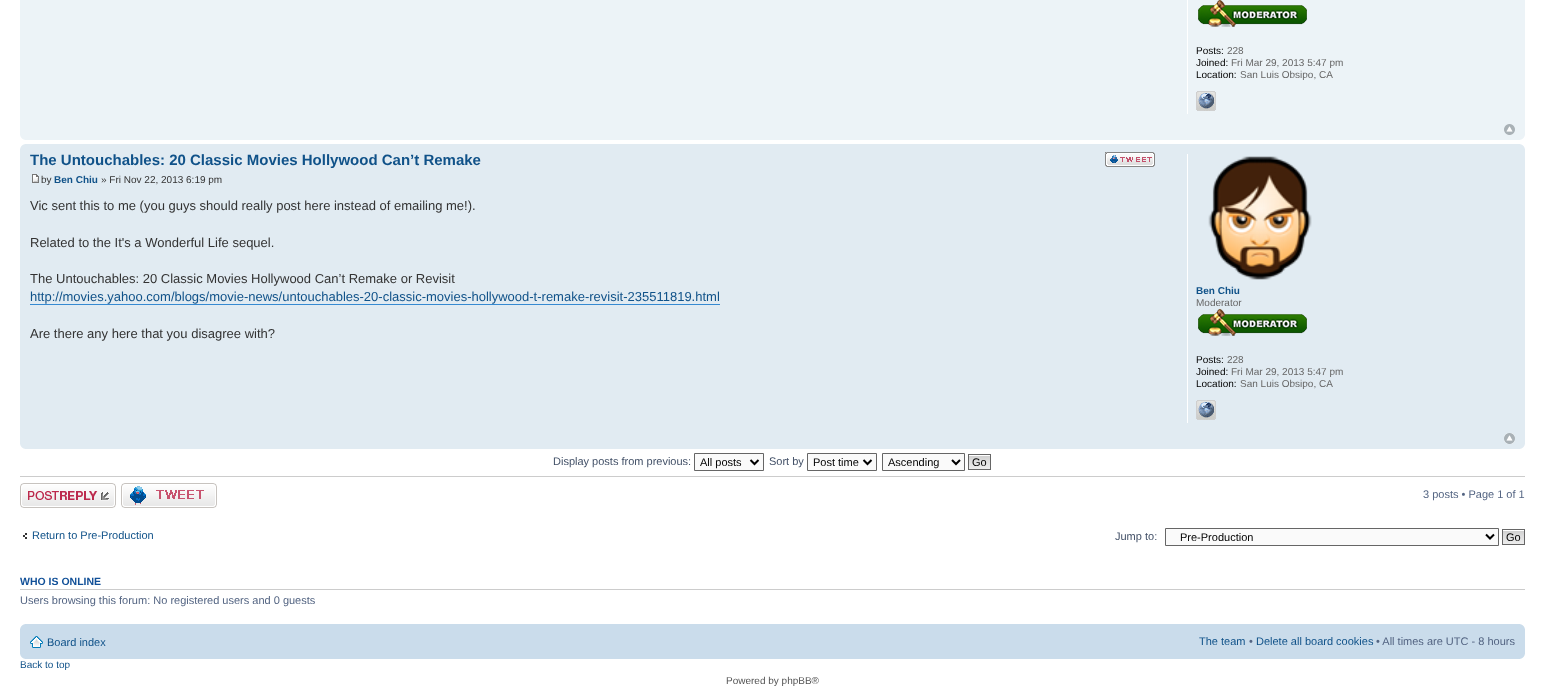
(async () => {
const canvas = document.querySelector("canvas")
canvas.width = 1545
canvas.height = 687
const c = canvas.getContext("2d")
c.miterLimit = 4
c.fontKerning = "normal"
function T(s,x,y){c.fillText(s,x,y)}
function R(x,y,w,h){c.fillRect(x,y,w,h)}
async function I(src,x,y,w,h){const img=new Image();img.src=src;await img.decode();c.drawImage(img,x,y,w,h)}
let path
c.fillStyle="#fff"
R(0,0,1545,687)
c.fillStyle="#ecf3f7"
R(20,0,1505,140)
c.fillStyle="#fff"
R(1187,0,1,114)
await I("1.png",1198,0,109,27)
c.font="10px Liberation Sans"
c.fillStyle="#000"
T("Posts:",1196,54)
c.fillStyle="#666"
T("228",1227,54)
c.fillStyle="#000"
T("Joined:",1196,66)
c.fillStyle="#666"
T("Fri Mar 29, 2013 5:47 pm",1231,66)
c.fillStyle="#000"
T("Location:",1196,78)
c.fillStyle="#666"
T("San Luis Obsipo, CA",1240,78)
await I("2.png",1196,91,20,20)
await I("3.png",1504,124,11,11)
await I("4.png",20,135,5,5)
await I("5.png",1520,135,5,5)
c.fillStyle="#e1ebf2"
R(20,144,1505,305)
await I("6.png",20,144,5,5)
await I("7.png",1520,144,5,5)
c.font="bold 15px Liberation Sans"
c.fillStyle="#105289"
T("The Untouchables: 20 Classic Movies Hollywood Can’t Remake",30,165)
await I("8.png",1105,152,50,15)
await I("9.png",32,174,7,9)
c.font="10px Liberation Sans"
c.fillStyle="#333"
T("by",41,183)
c.font="bold 10px Liberation Sans"
c.fillStyle="#105289"
T("Ben Chiu",54,183)
c.font="10px Liberation Sans"
c.fillStyle="#333"
T("» Fri Nov 22, 2013 6:19 pm",101,183)
c.font="13px Liberation Sans"
T("Vic sent this to me (you guys should really post here instead of emailing me!).",30,210)
T("Related to the It's a Wonderful Life sequel.",30,247)
T("The Untouchables: 20 Classic Movies Hollywood Can’t Remake or Revisit",30,283)
c.fillStyle="#105289"
T("http://movies.yahoo.com/blogs/movie-news/untouchables-20-classic-movies-hollywood-t-remake-revisit-235511819.html",30,301)
c.fillStyle="#368ad2"
R(30,304,690,1)
c.fillStyle="#333"
T("Are there any here that you disagree with?",30,338)
c.fillStyle="#fff"
R(1187,154,1,269)
await I("10.png",1208,156,104,124)
c.font="bold 10px Liberation Sans"
c.fillStyle="#105289"
T("Ben Chiu",1196,294)
c.font="10px Liberation Sans"
c.fillStyle="#666"
T("Moderator",1196,306)
await I("11.png",1198,309,109,27)
c.fillStyle="#000"
T("Posts:",1196,363)
c.fillStyle="#666"
T("228",1227,363)
c.fillStyle="#000"
T("Joined:",1196,375)
c.fillStyle="#666"
T("Fri Mar 29, 2013 5:47 pm",1231,375)
c.fillStyle="#000"
T("Location:",1196,387)
c.fillStyle="#666"
T("San Luis Obsipo, CA",1240,387)
await I("12.png",1196,400,20,20)
await I("13.png",1504,433,11,11)
await I("14.png",20,444,5,5)
await I("15.png",1520,444,5,5)
c.font="11px Liberation Sans"
c.fillStyle="#425067"
T("Display posts from previous:",553,465)
c.fillStyle="#fafafa"
c.beginPath()
c.rect(694.5,453.5,69,17)
c.fill()
c.strokeStyle="#666"
c.stroke()
path = new Path2D("M750.5 460l4 4l4-4")
c.strokeStyle="#000"
c.lineWidth=2
c.stroke(path)
c.fillStyle="#000"
T("All posts",700,466)
c.fillStyle="#425067"
T("Sort by",769,465)
c.fillStyle="#fafafa"
c.beginPath()
c.rect(807.5,453.5,69,17)
c.fill()
c.strokeStyle="#666"
c.lineWidth=1
c.stroke()
path = new Path2D("M863.5 460l4 4l4-4")
c.strokeStyle="#000"
c.lineWidth=2
c.stroke(path)
c.fillStyle="#000"
T("Post time",813,466)
c.fillStyle="#fafafa"
c.beginPath()
c.rect(882.5,453.5,82,17)
c.fill()
c.strokeStyle="#666"
c.lineWidth=1
c.stroke()
path = new Path2D("M952 460l4 4l4-4")
c.strokeStyle="#000"
c.lineWidth=2
c.stroke(path)
c.fillStyle="#000"
T("Ascending",888,466)
await I("16.png",969,455,21,14)
c.strokeStyle="#666"
c.lineWidth=1
c.strokeRect(968.5,454.5,22,15)
T("Go",972,466)
c.fillStyle="#ccc"
R(20,476,1505,1)
await I("17.png",20,483,96,25)
await I("18.png",121,483,96,25)
c.fillStyle="#536482"
T("3 posts • Page 1 of 1",1423,498)
await I("19.png",23,533,4,6)
c.fillStyle="#105289"
T("Return to Pre-Production",32,539)
c.fillStyle="#425067"
T("Jump to:",1115,540)
c.fillStyle="#fafafa"
c.beginPath()
c.rect(1165.5,528.5,333,17)
c.fill()
c.stroke()
path = new Path2D("M1486 534.5l4 4l4-4")
c.strokeStyle="#000"
c.lineWidth=2
c.stroke(path)
c.fillStyle="#000"
T("Pre-Production",1180,541)
await I("16.png",1503,530,21,14)
c.strokeStyle="#666"
c.lineWidth=1
c.strokeRect(1502.5,529.5,22,15)
T("Go",1506,541)
c.fillStyle="#ccc"
R(20,589,1505,1)
c.font="bold 10.5px Liberation Sans"
c.fillStyle="#115098"
T("WHO IS ONLINE",20,585)
c.font="11px Liberation Sans"
c.fillStyle="#536482"
T("Users browsing this forum: No registered users and 0 guests",20,604)
c.fillStyle="#cadceb"
R(20,624,1505,35)
await I("20.png",20,624,5,5)
await I("21.png",1520,624,5,5)
await I("22.png",30,636,13,12)
c.fillStyle="#105289"
T("Board index",47,646)
T("The team",1199,645)
c.fillStyle="#536482"
T("•",1249,645)
c.fillStyle="#105289"
T("Delete all board cookies",1256,645)
c.fillStyle="#536482"
T("• All times are UTC - 8 hours",1376,645)
await I("23.png",20,654,5,5)
await I("24.png",1520,654,5,5)
c.font="10px Liberation Sans"
c.fillStyle="#105289"
T("Back to top",20,668)
c.fillStyle="#555"
T("Powered by phpBB®",726,684)
})()
